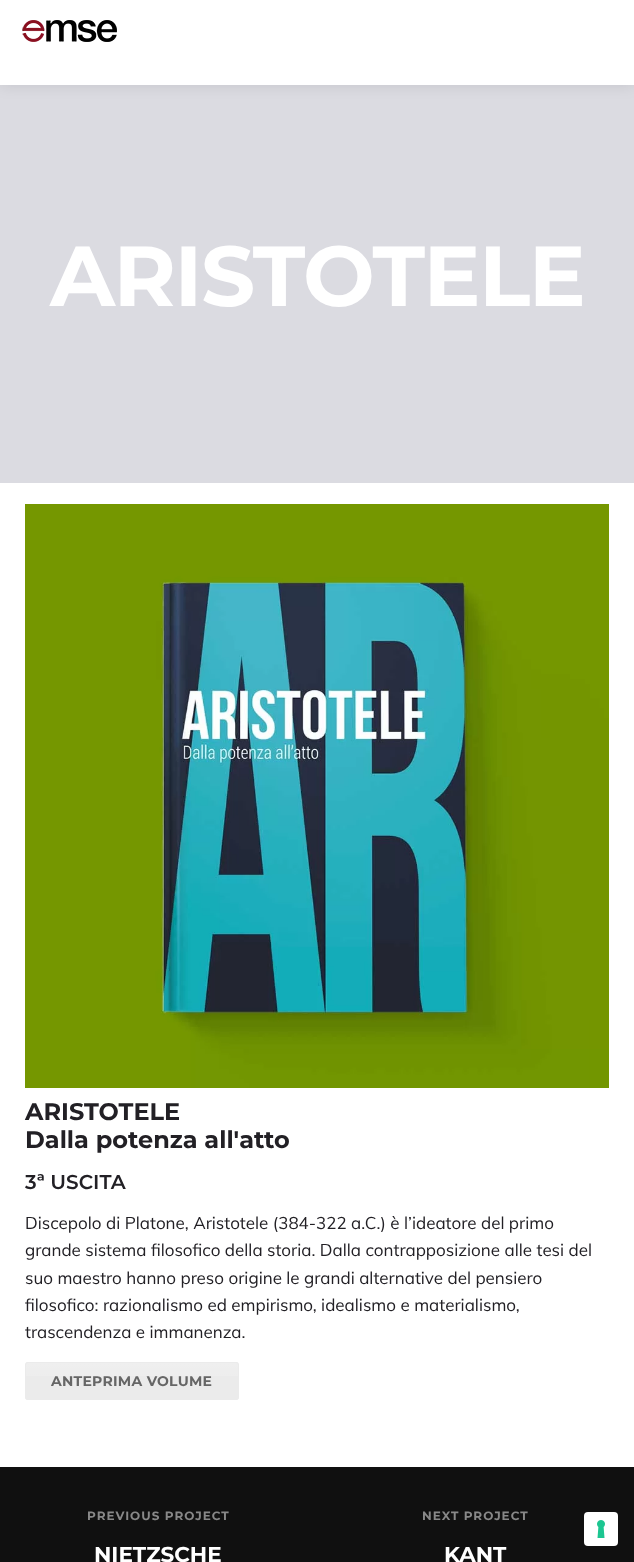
(async () => {
const canvas = document.querySelector("canvas")
canvas.width = 634
canvas.height = 1562
const c = canvas.getContext("2d")
c.miterLimit = 4
c.fontKerning = "normal"
function T(s,x,y){c.fillText(s,x,y)}
function R(x,y,w,h){c.fillRect(x,y,w,h)}
function Q(x,y,w,h,r){c.beginPath();c.roundRect(x,y,w,h,r);c.fill()}
async function I(src,x,y,w,h){const img=new Image();img.src=src;await img.decode();c.drawImage(img,x,y,w,h)}
let gradient
c.fillStyle="#dbdbe1"
R(0,0,634,1562)
c.fillStyle="#0000001a"
c.filter="blur(7.5px)"
c.beginPath()
c.rect(0,0,634,85)
c.fill()
c.filter="none"
c.fillStyle="#fff"
R(0,0,634,85)
await I("1.png",22,20,95,22)
c.letterSpacing="-1.5px"
c.font="bold 85px Montserrat"
T("ARISTOTELE",50,306)
R(0,483,634,984)
await I("2.png",25,504,584,584)
c.letterSpacing="0px"
c.font="bold 24px Montserrat"
c.fillStyle="#222025"
T("ARISTOTELE",25,1120)
T("Dalla potenza all'atto",25,1148)
c.font="600 20px Montserrat"
T("3ª USCITA",25,1189)
c.font="17px Muli"
T("Discepolo di Platone, Aristotele (384-322 a.C.) è l’ideatore del primo",25,1229)
T("grande sistema filosofico della storia. Dalla contrapposizione alle tesi del",25,1256)
T("suo maestro hanno preso origine le grandi alternative del pensiero",25,1284)
T("filosofico: razionalismo ed empirismo, idealismo e materialismo,",25,1311)
T("trascendenza e immanenza.",25,1338)
c.fillStyle="#ebebeb"
Q(25,1362,214,38,3)
gradient = c.createLinearGradient(132,1363,132,1399)
gradient.addColorStop(0,"#ffffff33")
gradient.addColorStop(1,"#ffffff03")
c.fillStyle = gradient
R(25,1363,214,13)
c.beginPath()
c.roundRect(25.5,1362.5,213,37,2.5)
c.strokeStyle="#ebebeb"
c.stroke()
c.letterSpacing="0.25px"
c.font="bold 14px Montserrat"
c.fillStyle="#666"
T("ANTEPRIMA VOLUME",51,1386)
c.fillStyle="#101010"
R(0,1467,634,95)
c.letterSpacing="1px"
c.font="bold 12px Montserrat"
c.fillStyle="#888"
T("PREVIOUS PROJECT",87,1520)
c.letterSpacing="0px"
c.font="bold 21.5px Montserrat"
c.fillStyle="#fff"
T("NIETZSCHE",94,1562)
c.letterSpacing="1px"
c.font="bold 12px Montserrat"
c.fillStyle="#888"
T("NEXT PROJECT",422,1520)
c.letterSpacing="0px"
c.font="bold 21.5px Montserrat"
c.fillStyle="#fff"
T("KANT",444,1562)
Q(584,1512,34,34,4)
await I("3.png",597,1520,8,18)
})()
